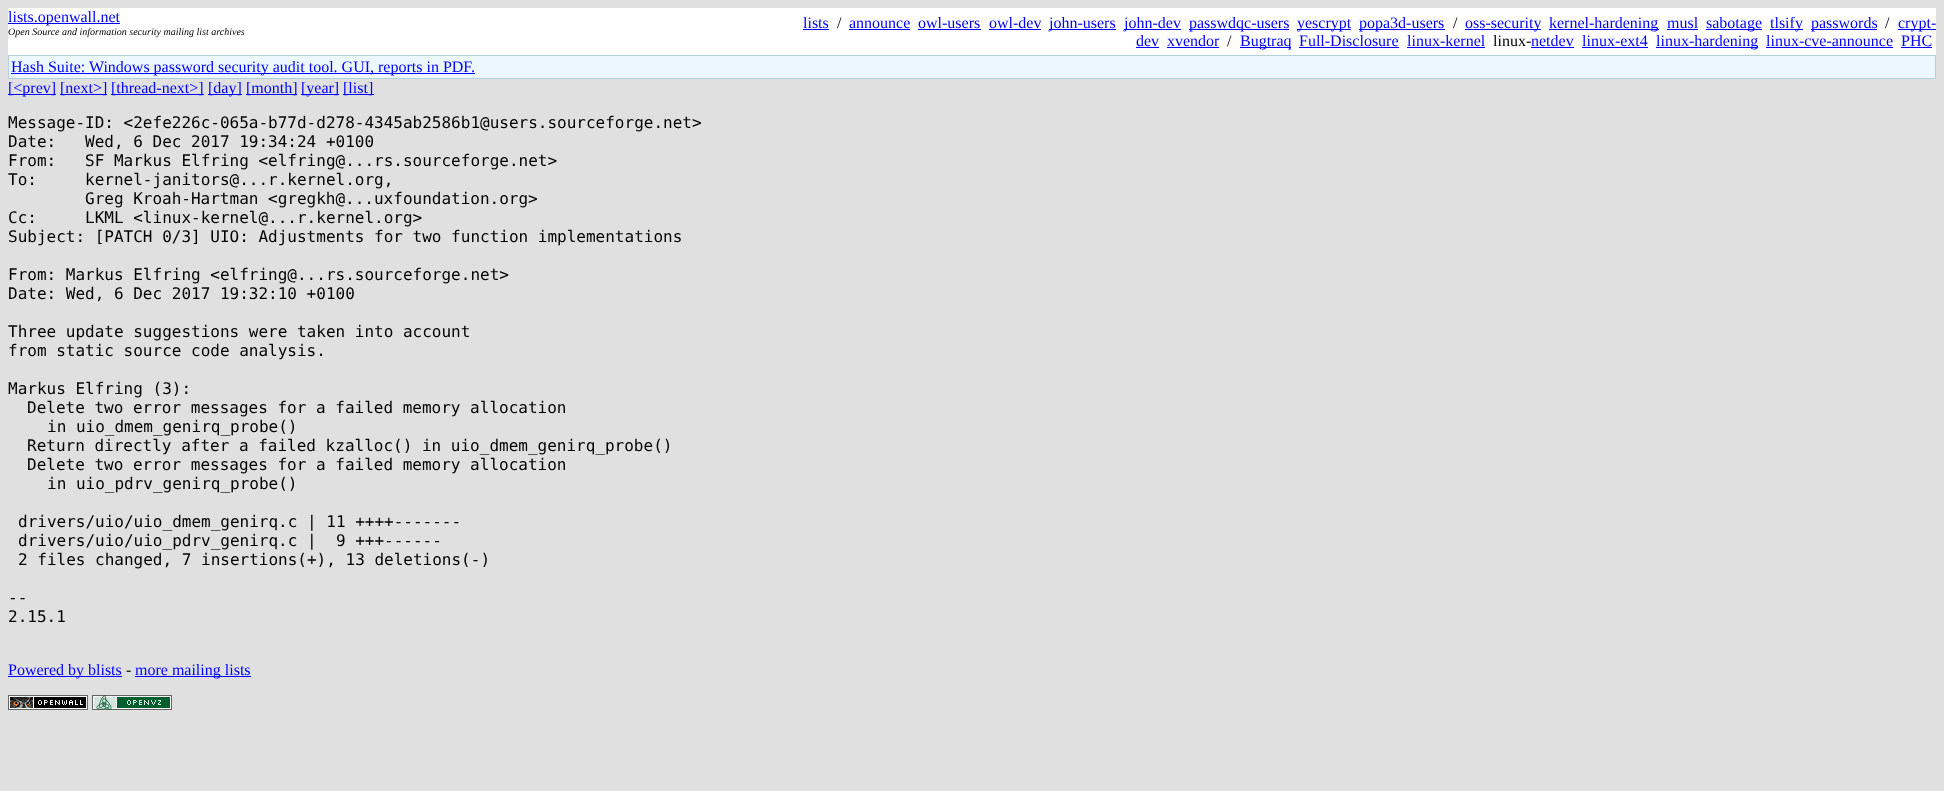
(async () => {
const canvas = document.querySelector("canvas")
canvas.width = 1944
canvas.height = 791
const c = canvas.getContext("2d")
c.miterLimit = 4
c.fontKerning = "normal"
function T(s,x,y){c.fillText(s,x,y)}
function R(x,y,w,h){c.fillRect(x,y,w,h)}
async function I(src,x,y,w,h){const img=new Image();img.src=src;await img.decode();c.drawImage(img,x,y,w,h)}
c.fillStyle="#e0e0e0"
R(0,0,1944,791)
c.fillStyle="#fff"
R(8,8,1928,47)
c.fillStyle="#00f"
R(8,23,112,1)
c.font="16px Liberation Serif"
T("lists.openwall.net",8,22)
T("lists",803,28)
R(803,29,26,1)
c.fillStyle="#000"
T("/",837,28)
c.fillStyle="#00f"
T("announce",849,28)
R(849,29,61,1)
T("owl-users",918,28)
R(918,29,63,1)
T("owl-dev",989,28)
R(989,29,52,1)
R(1049,29,67,1)
T("john-users",1049,28)
R(1124,29,57,1)
T("john-dev",1124,28)
R(1189,29,100,1)
T("passwdqc-users",1189,28)
R(1297,29,54,1)
T("yescrypt",1297,28)
R(1359,29,86,1)
T("popa3d-users",1359,28)
c.fillStyle="#000"
T("/",1453,28)
c.fillStyle="#00f"
R(1465,29,76,1)
T("oss-security",1465,28)
R(1549,29,110,1)
T("kernel-hardening",1549,28)
T("musl",1667,28)
R(1667,29,31,1)
R(1706,29,56,1)
T("sabotage",1706,28)
R(1770,29,33,1)
T("tlsify",1770,28)
R(1811,29,66,1)
T("passwords",1811,28)
c.fillStyle="#000"
T("/",1885,28)
c.fillStyle="#00f"
R(1898,29,38,1)
T("crypt-",1898,28)
T("dev",1136,46)
R(1136,47,23,1)
T("xvendor",1167,46)
R(1167,47,52,1)
c.fillStyle="#000"
T("/",1227,46)
c.fillStyle="#00f"
R(1240,47,51,1)
T("Bugtraq",1240,46)
T("Full-Disclosure",1299,46)
R(1299,47,100,1)
T("linux-kernel",1407,46)
R(1407,47,78,1)
c.fillStyle="#000"
T("linux-",1493,46)
c.fillStyle="#00f"
T("netdev",1531,46)
R(1531,47,43,1)
T("linux-ext4",1582,46)
R(1582,47,66,1)
R(1656,47,102,1)
T("linux-hardening",1656,46)
T("linux-cve-announce",1766,46)
R(1766,47,127,1)
T("PHC",1901,46)
R(1901,47,31,1)
c.font="italic 10px Liberation Serif"
c.fillStyle="#000"
T("Open Source and information security mailing list archives",8,35)
c.fillStyle="#b4d0dc"
R(8,55,1928,24)
c.fillStyle="#ecf8ff"
R(9,56,1926,22)
c.fillStyle="#00f"
R(11,73,464,1)
c.font="16px Liberation Serif"
T("Hash Suite: Windows password security audit tool. GUI, reports in PDF.",11,72)
R(8,94,48,1)
T("[<prev]",8,93)
R(60,94,47,1)
T("[next>]",60,93)
R(111,94,93,1)
T("[thread-next>]",111,93)
R(208,94,34,1)
T("[day]",208,93)
R(246,94,51,1)
T("[month]",246,93)
R(301,94,38,1)
T("[year]",301,93)
R(343,94,31,1)
T("[list]",343,93)
c.font="16px DejaVu Sans Mono"
c.fillStyle="#000"
T("Message-ID: <2efe226c-065a-b77d-d278-4345ab2586b1@users.sourceforge.net>",8,128)
T("Date:   Wed, 6 Dec 2017 19:34:24 +0100",8,147)
T("From:   SF Markus Elfring <elfring@...rs.sourceforge.net>",8,166)
T("To:     kernel-janitors@...r.kernel.org,",8,185)
T("Greg Kroah-Hartman <gregkh@...uxfoundation.org>",85,204)
T("Cc:     LKML <linux-kernel@...r.kernel.org>",8,223)
T("Subject: [PATCH 0/3] UIO: Adjustments for two function implementations",8,242)
T("From: Markus Elfring <elfring@...rs.sourceforge.net>",8,280)
T("Date: Wed, 6 Dec 2017 19:32:10 +0100",8,299)
T("Three update suggestions were taken into account",8,337)
T("from static source code analysis.",8,356)
T("Markus Elfring (3):",8,394)
T("Delete two error messages for a failed memory allocation",27,413)
T("in uio_dmem_genirq_probe()",47,432)
T("Return directly after a failed kzalloc() in uio_dmem_genirq_probe()",27,451)
T("Delete two error messages for a failed memory allocation",27,470)
T("in uio_pdrv_genirq_probe()",47,489)
T("drivers/uio/uio_dmem_genirq.c | 11 ++++-------",18,527)
T("drivers/uio/uio_pdrv_genirq.c |  9 +++------",18,546)
T("2 files changed, 7 insertions(+), 13 deletions(-)",18,565)
T("--",8,603)
T("2.15.1",8,622)
c.fillStyle="#00f"
R(8,676,114,1)
c.font="16px Liberation Serif"
T("Powered by blists",8,675)
c.fillStyle="#000"
T("-",126,675)
c.fillStyle="#00f"
R(135,676,116,1)
T("more mailing lists",135,675)
await I("1.png",8,695,80,15)
await I("2.png",92,695,80,15)
})()
